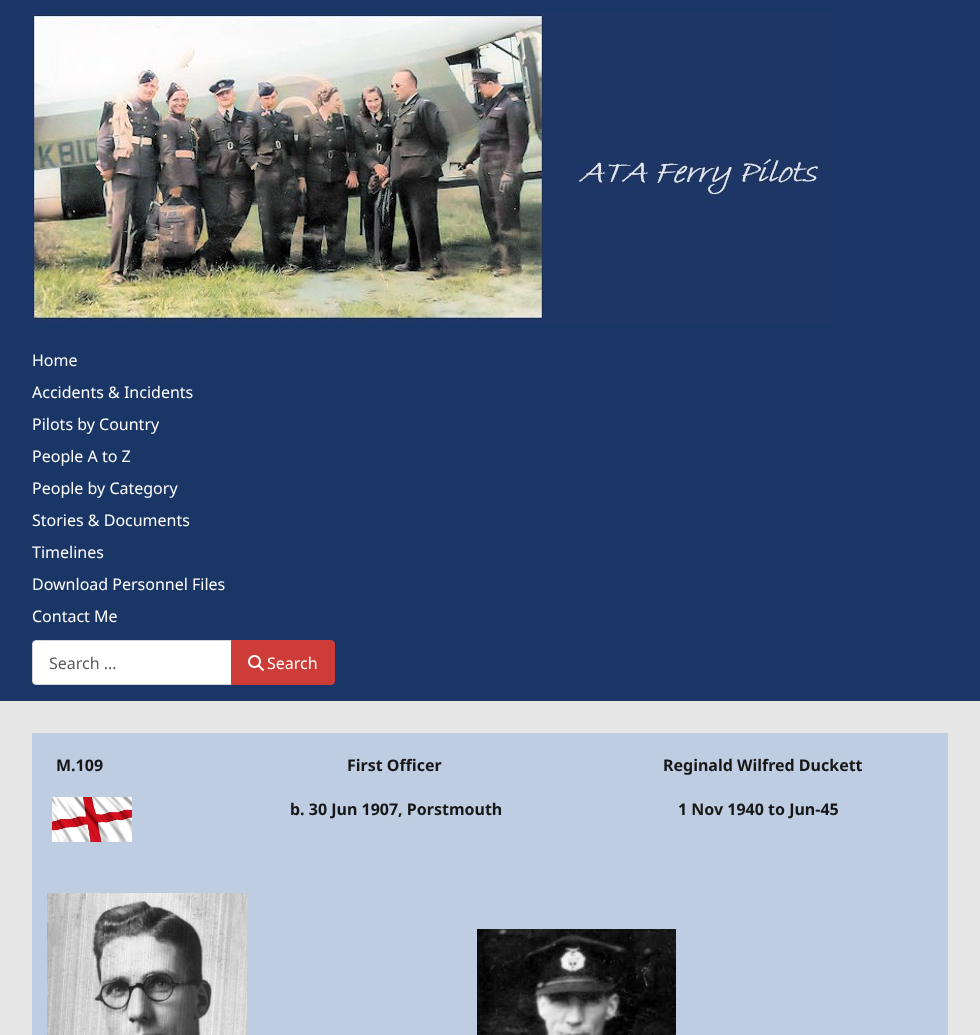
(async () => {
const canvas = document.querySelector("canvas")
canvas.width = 980
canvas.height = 1035
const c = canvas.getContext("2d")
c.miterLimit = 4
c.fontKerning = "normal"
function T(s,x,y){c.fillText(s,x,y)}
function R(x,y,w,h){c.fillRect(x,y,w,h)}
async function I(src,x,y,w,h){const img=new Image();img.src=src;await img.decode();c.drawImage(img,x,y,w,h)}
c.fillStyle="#e6e6e6"
R(0,0,980,1035)
c.fillStyle="#1a3666"
R(0,0,980,701)
await I("1.png",32,13,800,310)
c.font="16px Noto Sans"
c.fillStyle="#fefefe"
T("Home",32,366)
T("Accidents & Incidents",32,398)
T("Pilots by Country",32,430)
T("People A to Z",32,462)
T("People by Category",32,494)
T("Stories & Documents",32,526)
T("Timelines",32,558)
T("Download Personnel Files",32,590)
T("Contact Me",32,622)
c.fillStyle="#fff"
c.beginPath()
c.roundRect(32.5,640.5,199,44,[3.5,0,0,3.5])
c.fill()
c.strokeStyle="#ced4da"
c.stroke()
c.fillStyle="#595c5f"
T("Search …",49,669)
c.fillStyle="#ce3c37"
c.beginPath()
c.roundRect(231.5,640.5,103,44,[0,3.5,3.5,0])
c.fill()
c.strokeStyle="#ce3c37"
c.stroke()
await I("2.png",248,655,16,16)
c.fillStyle="#fefefe"
T("Search",267,669)
c.fillStyle="#becde2"
R(32,733,916,302)
c.font="bold 16px Noto Sans"
c.fillStyle="#171717"
T("M.109",56,771)
T("First Officer",347,771)
T("Reginald Wilfred Duckett",663,771)
await I("3.png",52,797,80,45)
T("b. 30 Jun 1907, Porstmouth",290,815)
T("1 Nov 1940 to Jun-45",678,815)
await I("4.png",47,893,200,142)
await I("5.png",477,929,199,106)
})()
